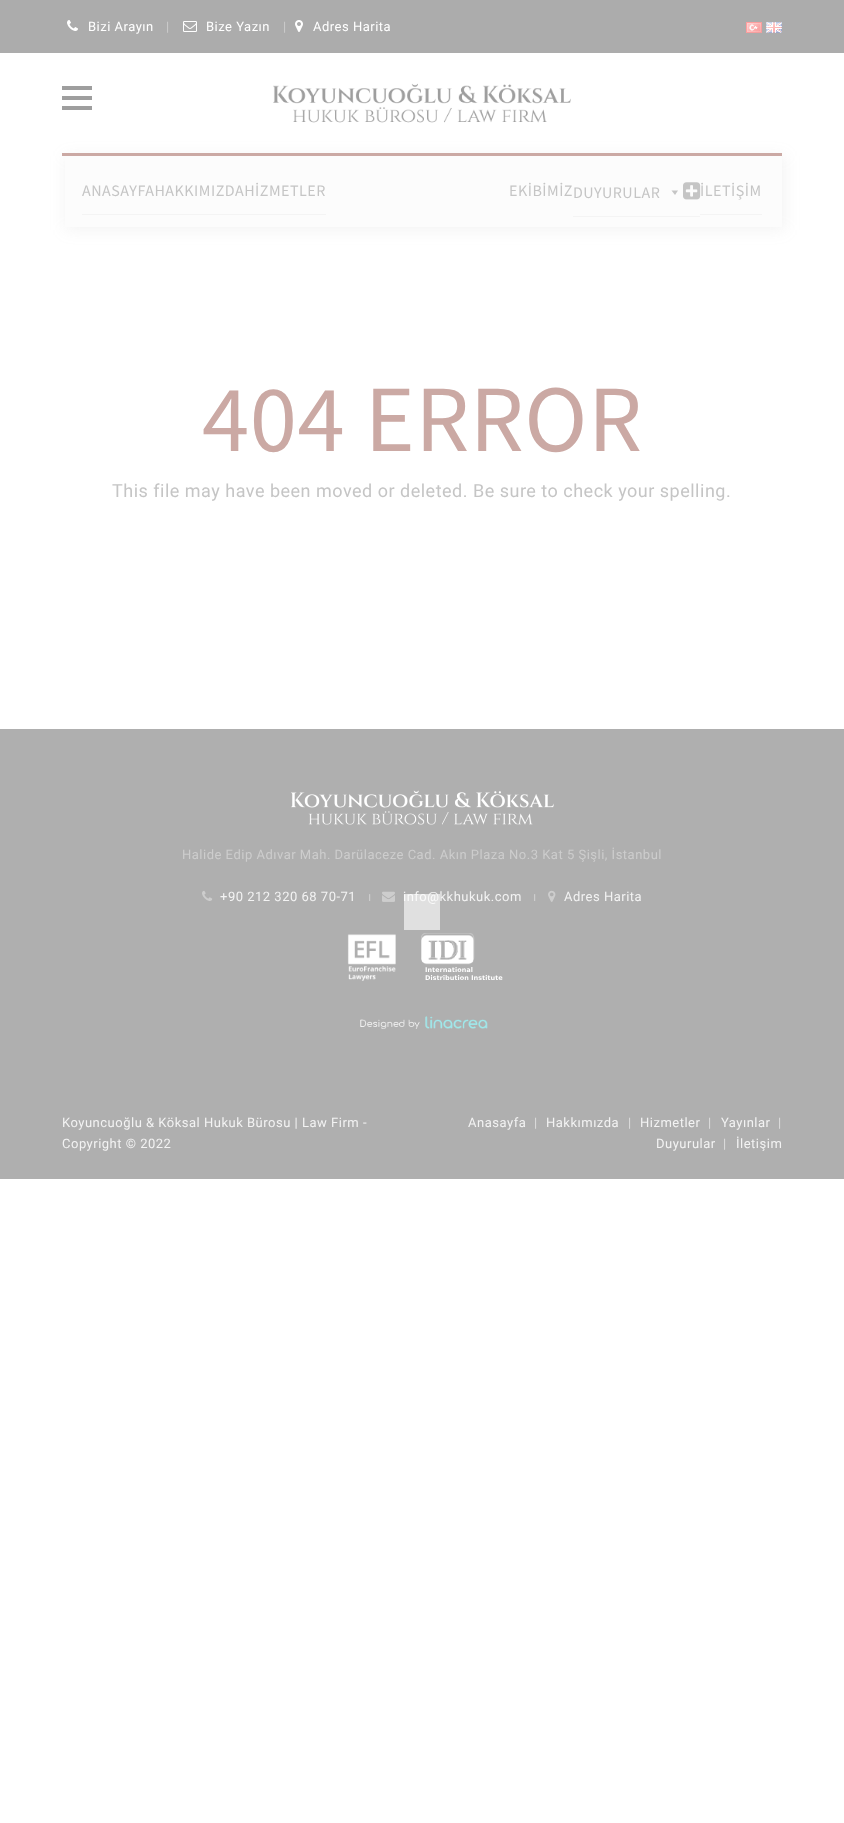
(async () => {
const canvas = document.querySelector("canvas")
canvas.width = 844
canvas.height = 1823
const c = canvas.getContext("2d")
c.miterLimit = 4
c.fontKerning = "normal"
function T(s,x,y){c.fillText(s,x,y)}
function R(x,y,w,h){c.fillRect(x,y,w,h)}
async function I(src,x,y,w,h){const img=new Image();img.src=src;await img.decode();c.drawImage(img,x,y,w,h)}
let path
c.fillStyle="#fff"
R(0,0,844,1823)
c.fillStyle="#acacac"
R(0,0,844,53)
await I("1.png",67,20,11,11)
c.letterSpacing="0.5px"
c.font="13px Roboto"
c.fillStyle="#fff"
T("Bizi Arayın",88,31)
c.fillStyle="#cdcdcd"
T("|",166,31)
await I("2.png",183,21,14,11)
c.fillStyle="#fff"
T("Bize Yazın",206,31)
c.fillStyle="#cdcdcd"
T("|",283,31)
await I("3.png",295,20,8,12)
c.fillStyle="#fff"
T("Adres Harita",313,31)
await I("4.png",746,22,16,11)
await I("5.png",766,22,16,11)
await I("6.png",273,83,298,40)
c.fillStyle="#9e9e9e"
R(62,96,30,4)
R(62,86,30,4)
R(62,106,30,4)
c.fillStyle="#9e9e9e1f"
c.filter="blur(7.5px)"
c.beginPath()
c.rect(65,156,720,74)
c.fill()
c.filter="none"
c.fillStyle="#fcfcfc"
R(65,156,717,71)
c.fillStyle="#cba9a4"
R(62,153,720,3)
c.fillStyle="#f4f4f4"
R(82,214,244,1)
c.font="16px Source Sans Pro"
c.fillStyle="#c5c5c5"
T("ANASAYFAHAKKIMIZDAHİZMETLER",82,196)
T("EKİBİMİZ",509,196)
c.fillStyle="#f4f4f4"
R(573,216,127,1)
c.fillStyle="#c5c5c5"
T("DUYURULAR",573,198)
path = new Path2D("M678 190.5l-3 4.5l-3.5-4.5z")
c.fill(path)
await I("7.png",683,182,18,18)
c.fillStyle="#f4f4f4"
R(700,214,62,1)
c.fillStyle="#c5c5c5"
T("İLETİŞİM",700,196)
c.font="95px Source Sans Pro"
c.fillStyle="#cba9a4"
T("404 ERROR",202,451)
c.font="18px Roboto"
c.fillStyle="#c5c5c5"
T("This file may have been moved or deleted. Be sure to check your spelling.",112,497)
c.fillStyle="#afafaf"
R(0,729,844,450)
await I("8.png",291,790,263,35)
c.font="13px Roboto"
c.fillStyle="#cdcdcd"
T("Halide Edip Adıvar Mah. Darülaceze Cad. Akın Plaza No.3 Kat 5 Şişli, İstanbul",182,859)
await I("9.png",202,890,11,11)
c.fillStyle="#f3f3f3"
T("+90 212 320 68 70-71",220,901)
c.fillStyle="#cdcdcd"
T("ı",368,901)
await I("10.png",382,891,13,11)
c.fillStyle="#f3f3f3"
T("info@kkhukuk.com",403,901)
c.fillStyle="#cdcdcd"
T("ı",533,901)
await I("11.png",548,890,8,12)
c.fillStyle="#f3f3f3"
T("Adres Harita",564,901)
await I("12.png",347,933,156,48)
await I("13.png",360,1016,128,13)
T("Koyuncuoğlu & Köksal Hukuk Bürosu | Law Firm -",62,1127)
T("Copyright © 2022",62,1148)
T("Anasayfa",468,1127)
c.fillStyle="#dfdfdf"
T("|",534,1127)
c.fillStyle="#f3f3f3"
T("Hakkımızda",546,1127)
c.fillStyle="#dfdfdf"
T("|",628,1127)
c.fillStyle="#f3f3f3"
T("Hizmetler",640,1127)
c.fillStyle="#dfdfdf"
T("|",708,1127)
c.fillStyle="#f3f3f3"
T("Yayınlar",721,1127)
c.fillStyle="#dfdfdf"
T("|",778,1127)
c.fillStyle="#f3f3f3"
T("Duyurular",656,1148)
c.fillStyle="#dfdfdf"
T("|",723,1148)
c.fillStyle="#f3f3f3"
T("İletişim",736,1148)
c.fillStyle="#ffffff9e"
R(404,894,36,36)
})()
